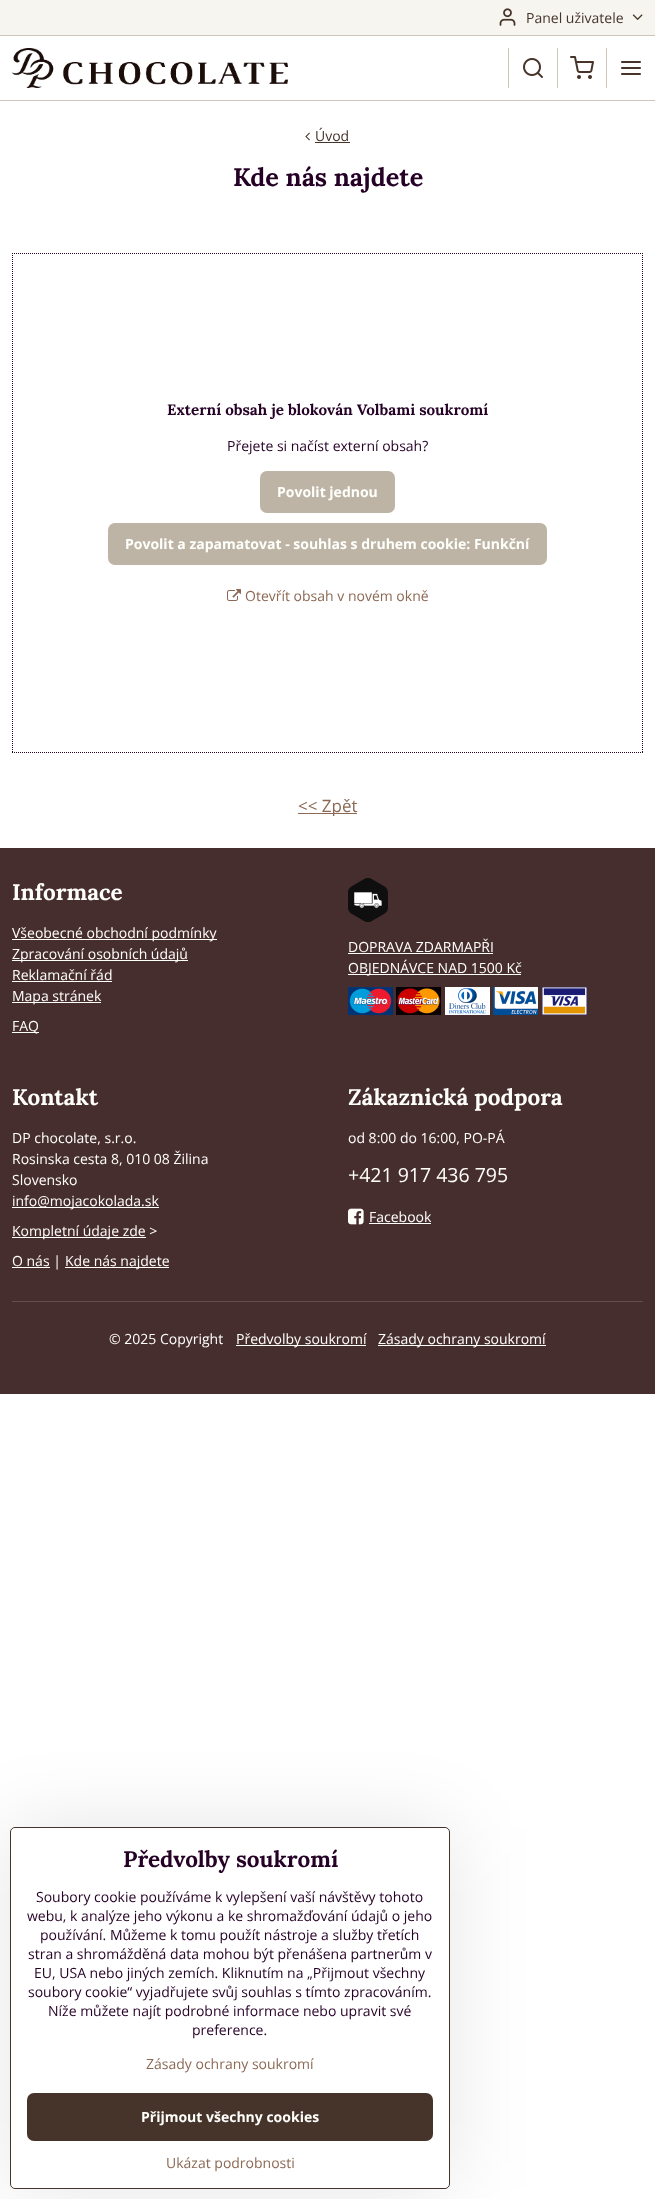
(async () => {
const canvas = document.querySelector("canvas")
canvas.width = 670
canvas.height = 2199
const c = canvas.getContext("2d")
c.miterLimit = 4
c.fontKerning = "normal"
function T(s,x,y){c.fillText(s,x,y)}
function R(x,y,w,h){c.fillRect(x,y,w,h)}
function Q(x,y,w,h,r){c.beginPath();c.roundRect(x,y,w,h,r);c.fill()}
async function I(src,x,y,w,h){const img=new Image();img.src=src;await img.decode();c.drawImage(img,x,y,w,h)}
let path
c.fillStyle="#fff"
R(0,0,670,2199)
c.fillStyle="#f7f5f0"
R(0,0,655,35)
c.fillStyle="#cfc6ba"
R(0,35,655,1)
await I("1.png",499,8,17,18)
c.font="14px Open Sans"
c.fillStyle="#46342a"
T("Panel uživatele",526,23)
await I("2.png",632,14,11,6)
c.fillStyle="#cfc6ba"
R(0,100,655,1)
await I("3.png",12,48,276,40)
R(508,48,1,40)
await I("4.png",523,58,20,20)
R(557,48,1,40)
await I("5.png",570,56,24,23)
R(606,48,1,40)
await I("6.png",621,61,20,14)
await I("7.png",305,132,5,9)
c.fillStyle="#46342a"
T("Úvod",315,141)
R(315,142,35,1)
c.font="bold 25.25px Lora"
c.fillStyle="#260126"
T("Kde nás najdete",233,186)
path = new Path2D("M12 253.5h631")
c.strokeStyle="#260126"
c.setLineDash([1,1])
c.stroke(path)
path = new Path2D("M642.5 253v500")
c.stroke(path)
path = new Path2D("M12 752.5h631")
c.stroke(path)
path = new Path2D("M12.5 253v500")
c.stroke(path)
c.font="bold 15.2px Lora"
T("Externí obsah je blokován Volbami soukromí",167,415)
c.font="14px Open Sans"
T("Přejete si načíst externí obsah?",227,451)
c.fillStyle="#bdb4a6"
Q(260,471,135,42,7)
c.font="bold 14px Open Sans"
c.fillStyle="#fffffc"
T("Povolit jednou",277,497)
c.fillStyle="#bdb4a6"
Q(108,523,439,42,7)
c.fillStyle="#fffffc"
T("Povolit a zapamatovat - souhlas s druhem cookie: Funkční",125,549)
await I("8.png",227,589,14,12)
c.font="14px Open Sans"
c.fillStyle="#8c6954"
T("Otevřít obsah v novém okně",245,601)
R(298,813,59,1)
c.font="17px Open Sans"
T("<< Zpět",298,812)
c.fillStyle="#472e2e"
R(0,848,655,546)
c.font="bold 22.5px Lora"
c.fillStyle="#fffffc"
T("Informace",12,900)
R(12,939,205,1)
c.font="14px Open Sans"
T("Všeobecné obchodní podmínky",12,938)
R(12,960,176,1)
T("Zpracování osobních údajů",12,959)
T("Reklamační řád",12,980)
R(12,981,100,1)
R(12,1002,89,1)
T("Mapa stránek",12,1001)
R(12,1032,27,1)
T("FAQ",12,1031)
await I("9.png",348,878,40,44)
T("DOPRAVA ZDARMAPŘI",348,952)
R(348,953,145,1)
R(348,974,173,1)
T("OBJEDNÁVCE NAD 1500 Kč",348,973)
await I("10.png",348,987,45,28)
await I("11.png",396,987,45,28)
await I("12.png",445,987,45,28)
await I("13.png",493,987,45,28)
await I("14.png",542,987,45,28)
c.font="bold 22.5px Lora"
T("Kontakt",12,1105)
c.font="14px Open Sans"
T("DP chocolate, s.r.o.",12,1143)
T("Rosinska cesta 8, 010 08 Žilina",12,1164)
T("Slovensko",12,1185)
R(12,1207,147,1)
T("info@mojacokolada.sk",12,1206)
R(12,1237,134,1)
T("Kompletní údaje zde >",12,1236)
R(12,1267,38,1)
T("O nás |",12,1266)
R(65,1267,104,1)
T("Kde nás najdete",65,1266)
c.font="bold 22.5px Lora"
T("Zákaznická podpora",348,1105)
c.font="14px Open Sans"
T("od 8:00 do 16:00, PO-PÁ",348,1143)
c.font="19.5px Open Sans"
T("+421 917 436 795",348,1182)
await I("15.png",348,1208,16,17)
c.font="14px Open Sans"
T("Facebook",369,1222)
R(369,1223,62,1)
c.fillStyle="#634d4d"
R(12,1301,631,1)
c.fillStyle="#fffffc"
T("© 2025 Copyright",109,1344)
R(236,1345,130,1)
T("Předvolby soukromí",236,1344)
R(378,1345,168,1)
T("Zásady ochrany soukromí",378,1344)
c.save()
path = new Path2D("M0 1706h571v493h-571zm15 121h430c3 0 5 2 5 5v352c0 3-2 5-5 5h-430c-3 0-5-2-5-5v-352c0-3 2-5 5-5z")
c.clip(path,"evenodd")
c.fillStyle="#0000001a"
c.filter="blur(40px)"
c.beginPath()
c.roundRect(10,1827,440,362,5)
c.fill()
c.filter="none"
c.restore()
c.beginPath()
c.roundRect(10.5,1827.5,439,361,4.5)
c.strokeStyle="#46342a"
c.setLineDash([])
c.stroke()
c.font="bold 22.5px Lora"
c.fillStyle="#260126"
T("Předvolby soukromí",123,1867)
c.font="14px Open Sans"
T("Soubory cookie používáme k vylepšení vaší návštěvy tohoto",36,1902)
T("webu, k analýze jeho výkonu a ke shromažďování údajů o jeho",27,1921)
T("používání. Můžeme k tomu použít nástroje a služby třetích",40,1940)
T("stran a shromážděná data mohou být přenášena partnerům v",28,1959)
T("EU, USA nebo jiných zemích. Kliknutím na „Přijmout všechny",34,1978)
T("soubory cookie“ vyjadřujete svůj souhlas s tímto zpracováním.",28,1997)
T("Níže můžete najít podrobné informace nebo upravit své",48,2016)
T("preference.",192,2035)
c.fillStyle="#8c6954"
T("Zásady ochrany soukromí",146,2069)
c.fillStyle="#46342a"
Q(27,2093,406,48,7)
c.font="bold 14px Open Sans"
c.fillStyle="#fffffc"
T("Přijmout všechny cookies",141,2122)
c.font="14px Open Sans"
c.fillStyle="#8c6954"
T("Ukázat podrobnosti",166,2168)
})()
